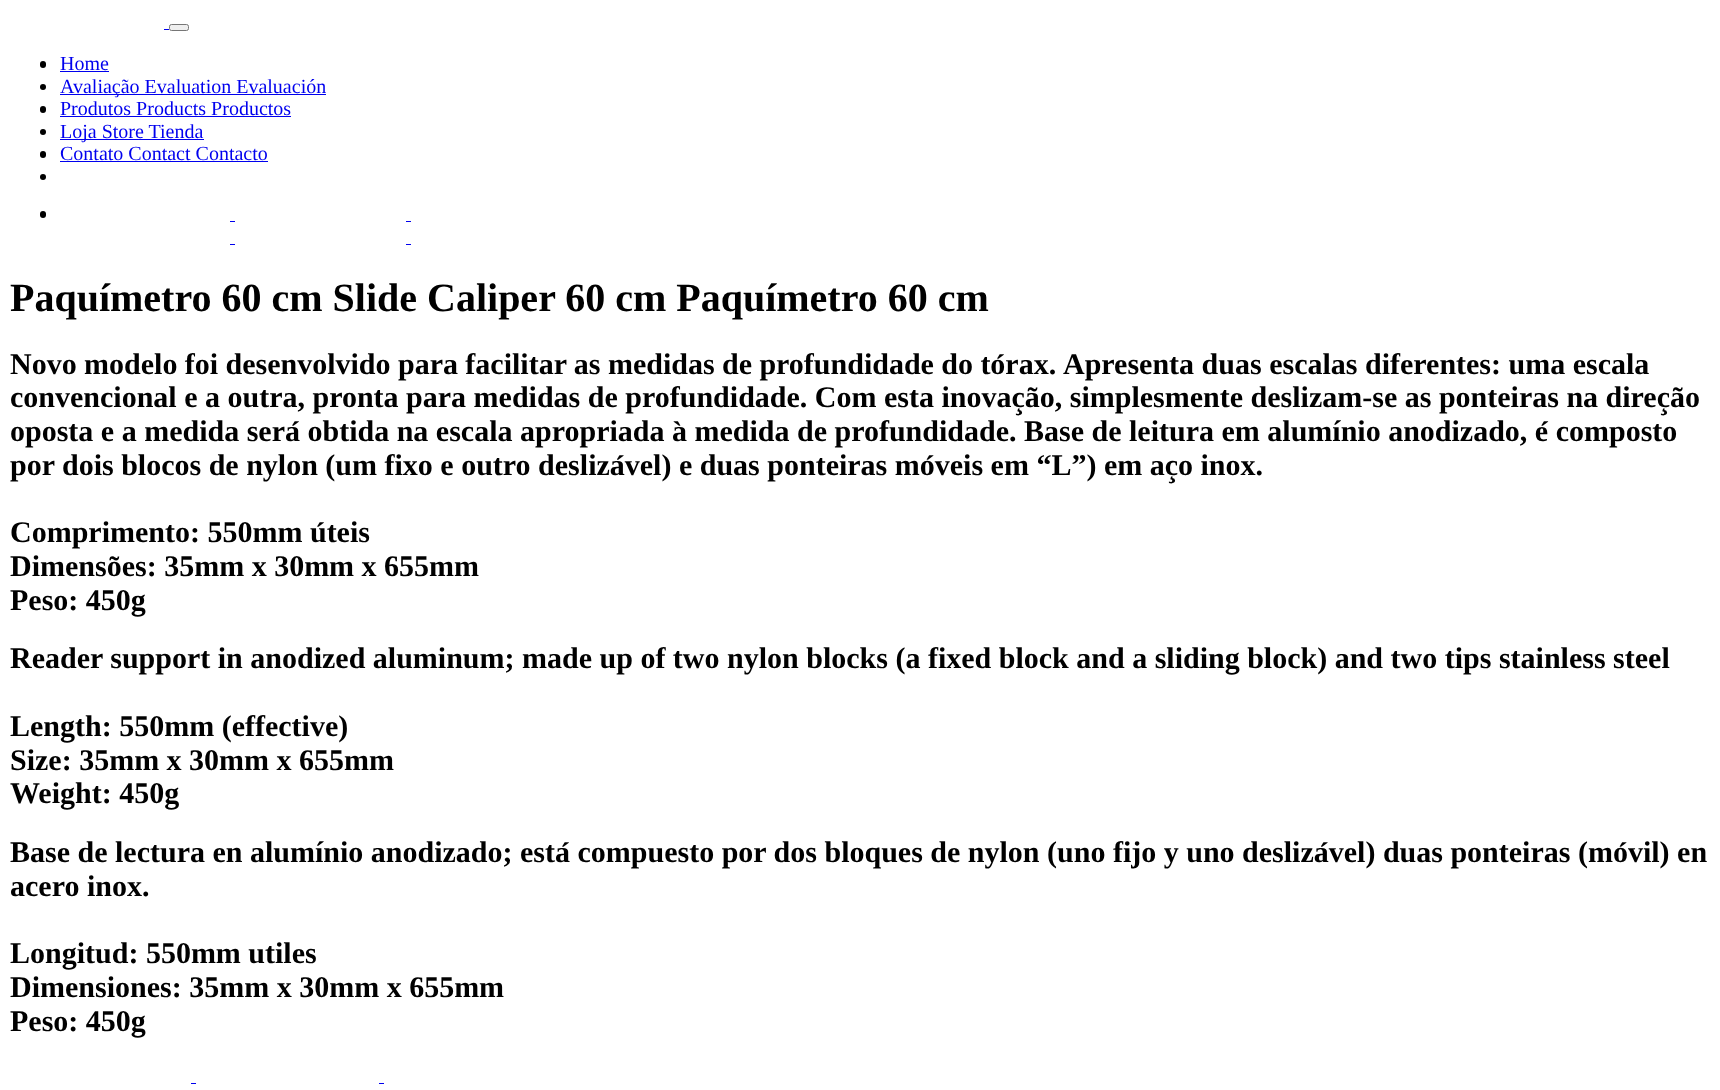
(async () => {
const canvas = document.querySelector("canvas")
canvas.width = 1720
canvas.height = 1090
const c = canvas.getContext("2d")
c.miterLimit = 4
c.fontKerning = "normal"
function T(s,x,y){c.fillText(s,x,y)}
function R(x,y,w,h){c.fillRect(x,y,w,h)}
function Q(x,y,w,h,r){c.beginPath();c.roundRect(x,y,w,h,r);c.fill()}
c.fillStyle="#fff"
R(0,0,1720,1090)
c.fillStyle="#00e"
R(164,29,5,1)
c.fillStyle="#efefef"
c.beginPath()
c.roundRect(169.5,24.5,19,6,2)
c.fill()
c.strokeStyle="#767676"
c.stroke()
c.fillStyle="#000"
Q(40,61,6,7,3)
c.font="20px Liberation Serif"
c.fillStyle="#00e"
T("Home",60,70)
R(60,71,49,1)
c.fillStyle="#000"
c.beginPath()
c.arc(43,87,3,0,7)
c.fill()
c.fillStyle="#00e"
R(60,94,266,1)
T("Avaliação Evaluation Evaluación",60,93)
c.fillStyle="#000"
Q(40,106,6,7,3)
c.fillStyle="#00e"
T("Produtos Products Productos",60,115)
R(60,116,231,1)
c.fillStyle="#000"
c.beginPath()
c.arc(43,132,3,0,7)
c.fill()
c.fillStyle="#00e"
R(60,139,36,1)
T("Loja Store Tienda",60,138)
R(96,139,108,1)
c.fillStyle="#000"
Q(40,151,6,7,3)
c.fillStyle="#00e"
T("Contato Contact Contacto",60,160)
R(60,161,208,1)
c.fillStyle="#000"
c.beginPath()
c.arc(43,177,3,0,7)
c.fill()
Q(40,211,6,7,3)
c.fillStyle="#00e"
R(230,221,5,1)
R(406,221,5,1)
R(230,244,5,1)
R(406,244,5,1)
c.font="bold 40px Liberation Serif"
c.fillStyle="#000"
T("Paquímetro 60 cm Slide Caliper 60 cm Paquímetro 60 cm",10,311)
c.wordSpacing="-0.1px"
c.font="bold 30px Liberation Serif"
T("Novo modelo foi desenvolvido para facilitar as medidas de profundidade do tórax.",10,374)
c.wordSpacing="0px"
T("Apresenta duas escalas diferentes: uma escala",1063,374)
T("convencional e a outra, pronta para medidas de profundidade. Com esta inovação, simplesmente deslizam-se as ponteiras na direção",10,407)
T("oposta e a medida será obtida na escala apropriada à medida de profundidade. Base de leitura em alumínio anodizado, é composto",10,441)
T("por dois blocos de nylon (um fixo e outro deslizável) e duas ponteiras móveis em “L”) em aço inox.",10,475)
T("Comprimento: 550mm úteis",10,542)
T("Dimensões: 35mm x 30mm x 655mm",10,576)
T("Peso: 450g",10,610)
T("Reader support in anodized aluminum; made up of two nylon blocks (a fixed block and a sliding block) and two tips stainless steel",10,668)
T("Length: 550mm (effective)",10,736)
T("Size: 35mm x 30mm x 655mm",10,770)
T("Weight: 450g",10,803)
T("Base de lectura en alumínio anodizado; está compuesto por dos bloques de nylon (uno fijo y uno deslizável) duas ponteiras (móvil) en",10,862)
T("acero inox.",10,896)
T("Longitud: 550mm utiles",10,963)
T("Dimensiones: 35mm x 30mm x 655mm",10,997)
T("Peso: 450g",10,1031)
c.fillStyle="#00e"
R(191,1083,5,1)
R(379,1083,5,1)
})()
